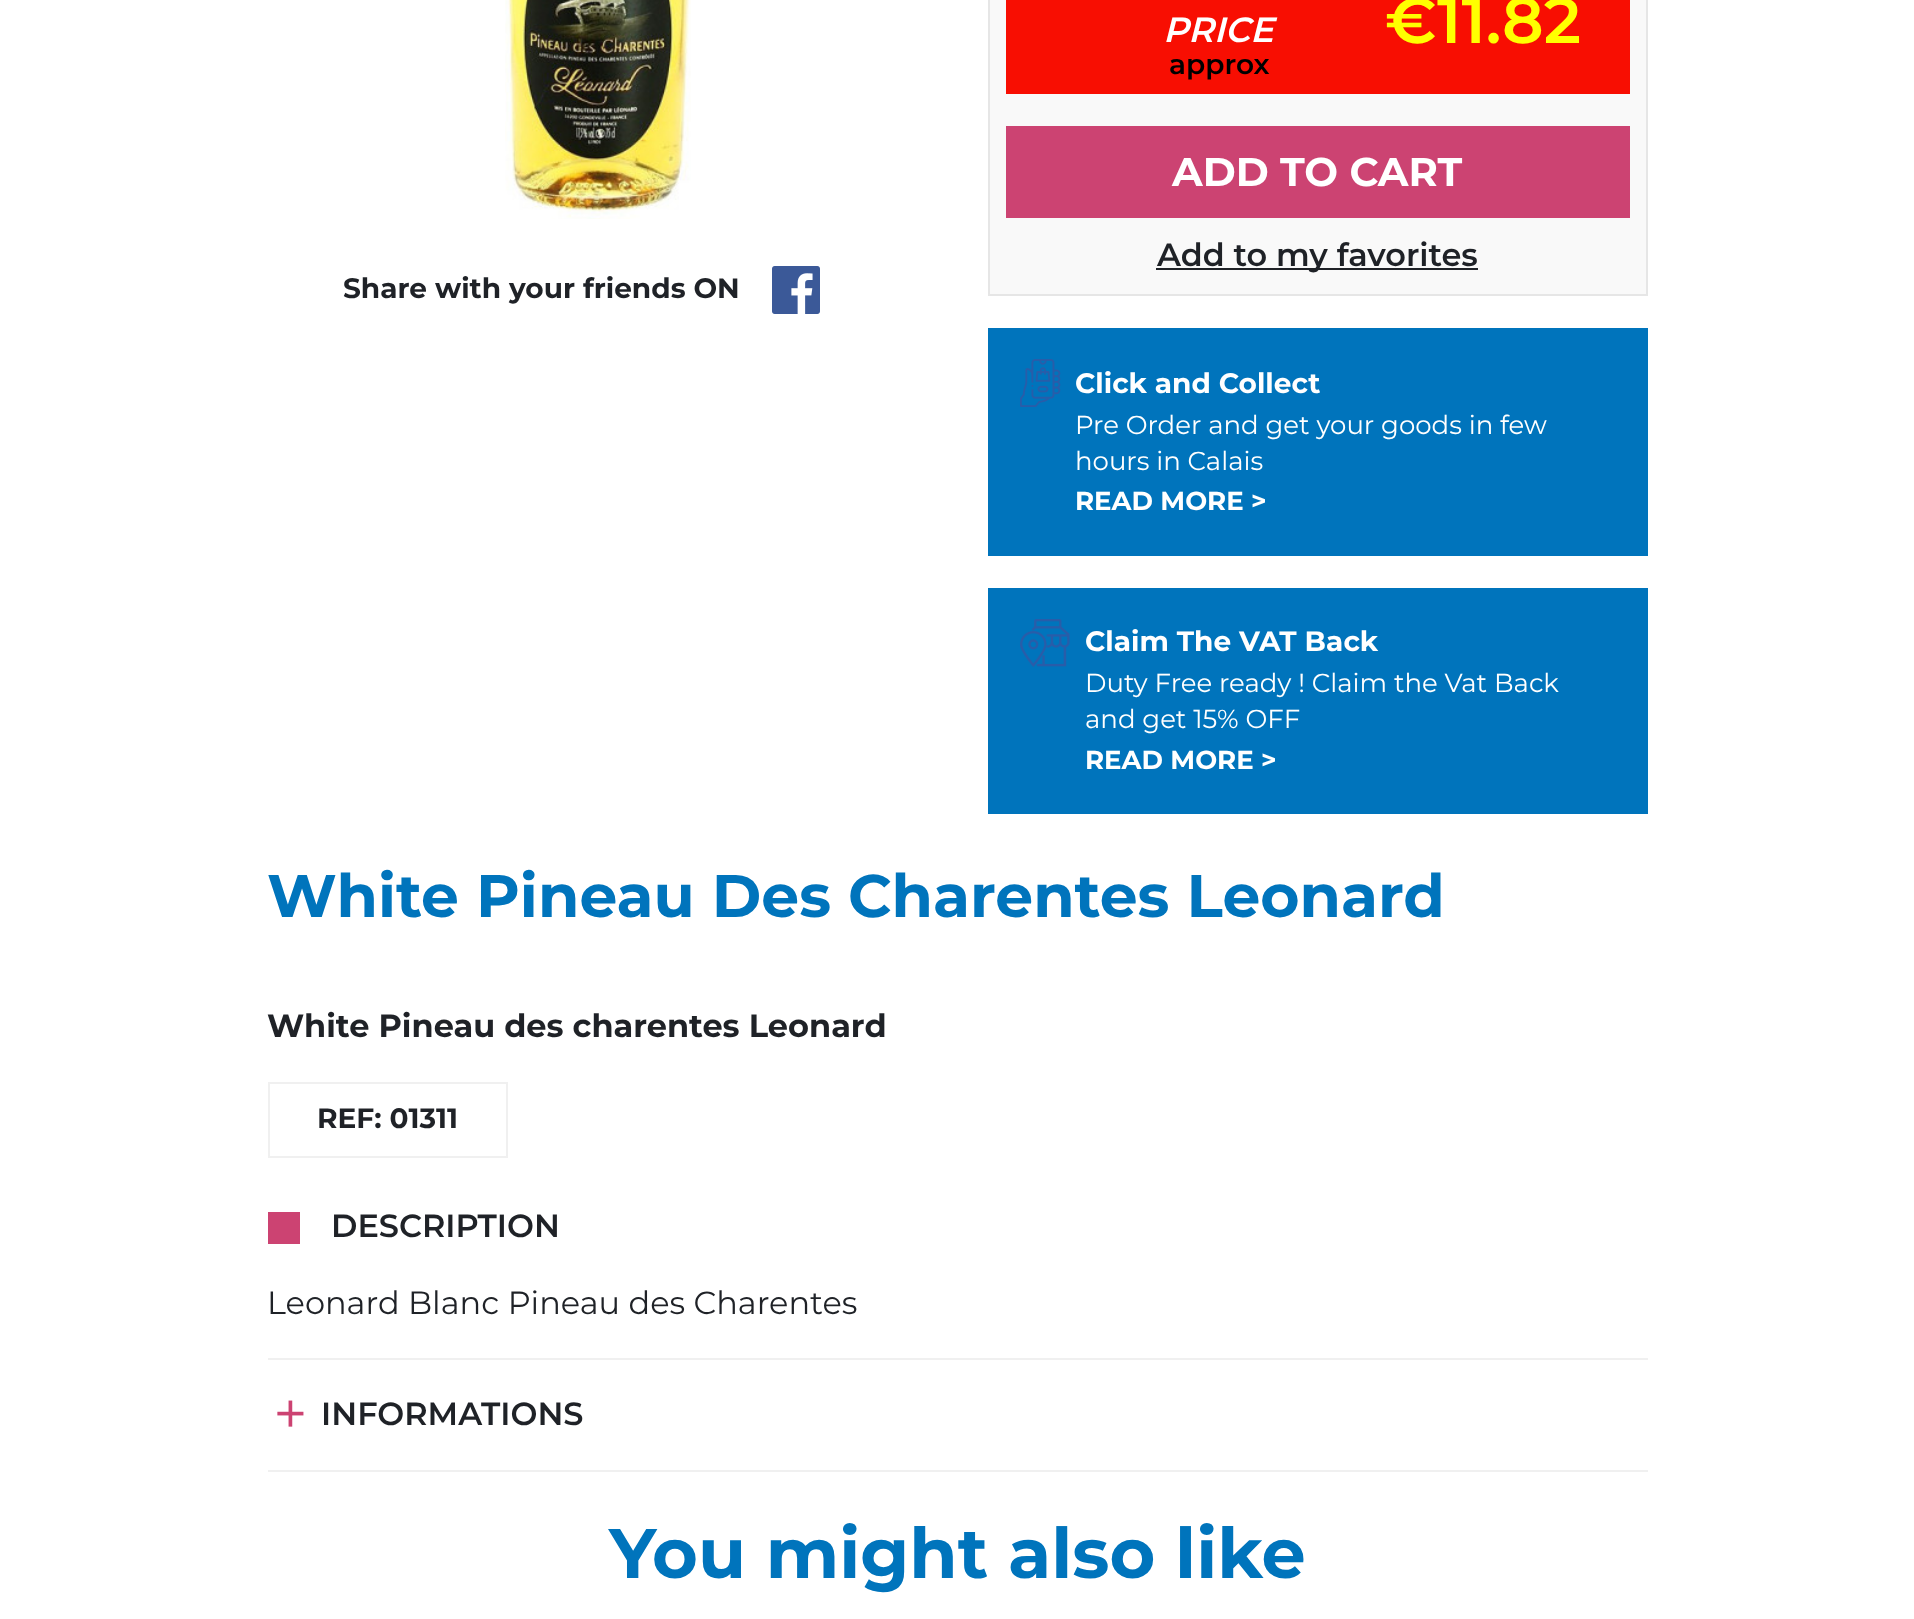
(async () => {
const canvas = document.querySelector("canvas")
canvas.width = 1914
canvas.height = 1619
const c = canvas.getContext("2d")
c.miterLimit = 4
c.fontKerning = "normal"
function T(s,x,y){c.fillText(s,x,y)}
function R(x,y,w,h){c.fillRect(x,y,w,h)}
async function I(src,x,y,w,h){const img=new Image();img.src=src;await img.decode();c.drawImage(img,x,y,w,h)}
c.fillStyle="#fff"
R(0,0,1914,1619)
await I("1.png",505,0,186,219)
c.font="bold 28px Montserrat"
c.fillStyle="#1f2227"
T("Share with your friends ON",343,298)
await I("2.png",772,266,48,48)
c.fillStyle="#f9f9f9"
R(990,0,656,294)
c.fillStyle="#e6e6e6"
R(1646,0,2,296)
R(988,294,660,2)
R(988,0,2,296)
c.fillStyle="#f80e02"
R(1006,0,624,94)
c.font="italic 600 35px Montserrat"
c.fillStyle="#fff"
T("PRICE",1163,42)
c.font="600 28px Montserrat"
c.fillStyle="#000"
T("approx",1169,74)
c.font="600 64px Montserrat"
c.fillStyle="#ff0"
T("€11.82",1385,43)
c.fillStyle="#cc4372"
R(1006,126,624,92)
c.font="bold 40px Montserrat"
c.fillStyle="#fff"
T("ADD TO CART",1172,186)
c.fillStyle="#1f2227"
R(1156,268,322,2)
c.font="600 32px Montserrat"
T("Add to my favorites",1157,266)
c.fillStyle="#0074bc"
R(988,328,660,228)
await I("3.png",1020,359,41,48)
c.font="bold 28px Montserrat"
c.fillStyle="#fff"
T("Click and Collect",1075,393)
c.font="26px Montserrat"
T("Pre Order and get your goods in few",1075,434)
T("hours in Calais",1075,470)
c.font="bold 26px Montserrat"
T("READ MORE >",1075,510)
c.fillStyle="#0074bc"
R(988,588,660,226)
await I("4.png",1020,619,50,48)
c.font="bold 28px Montserrat"
c.fillStyle="#fff"
T("Claim The VAT Back",1085,651)
c.font="26px Montserrat"
T("Duty Free ready ! Claim the Vat Back",1085,692)
T("and get 15% OFF",1085,728)
c.font="bold 26px Montserrat"
T("READ MORE >",1085,769)
c.font="bold 60px Montserrat"
c.fillStyle="#0074bc"
T("White Pineau Des Charentes Leonard",267,917)
c.font="bold 32px Montserrat"
c.fillStyle="#1f2227"
T("White Pineau des charentes Leonard",267,1037)
c.strokeStyle="#f0f0f0"
c.lineWidth=2
c.strokeRect(269,1083,238,74)
c.font="bold 28px Montserrat"
T("REF: 01311",317,1128)
c.fillStyle="#f0f0f0"
R(268,1358,1380,2)
c.fillStyle="#cc4372"
R(268,1212,32,32)
c.font="600 32px Montserrat"
c.fillStyle="#1f2227"
T("DESCRIPTION",331,1237)
c.font="32px Montserrat"
T("Leonard Blanc Pineau des Charentes",267,1314)
c.fillStyle="#f0f0f0"
R(268,1470,1380,2)
await I("5.png",277,1400,27,27)
c.font="600 32px Montserrat"
c.fillStyle="#1f2227"
T("INFORMATIONS",321,1425)
c.font="bold 70px Montserrat"
c.fillStyle="#0074bc"
T("You might also like",609,1578)
})()
